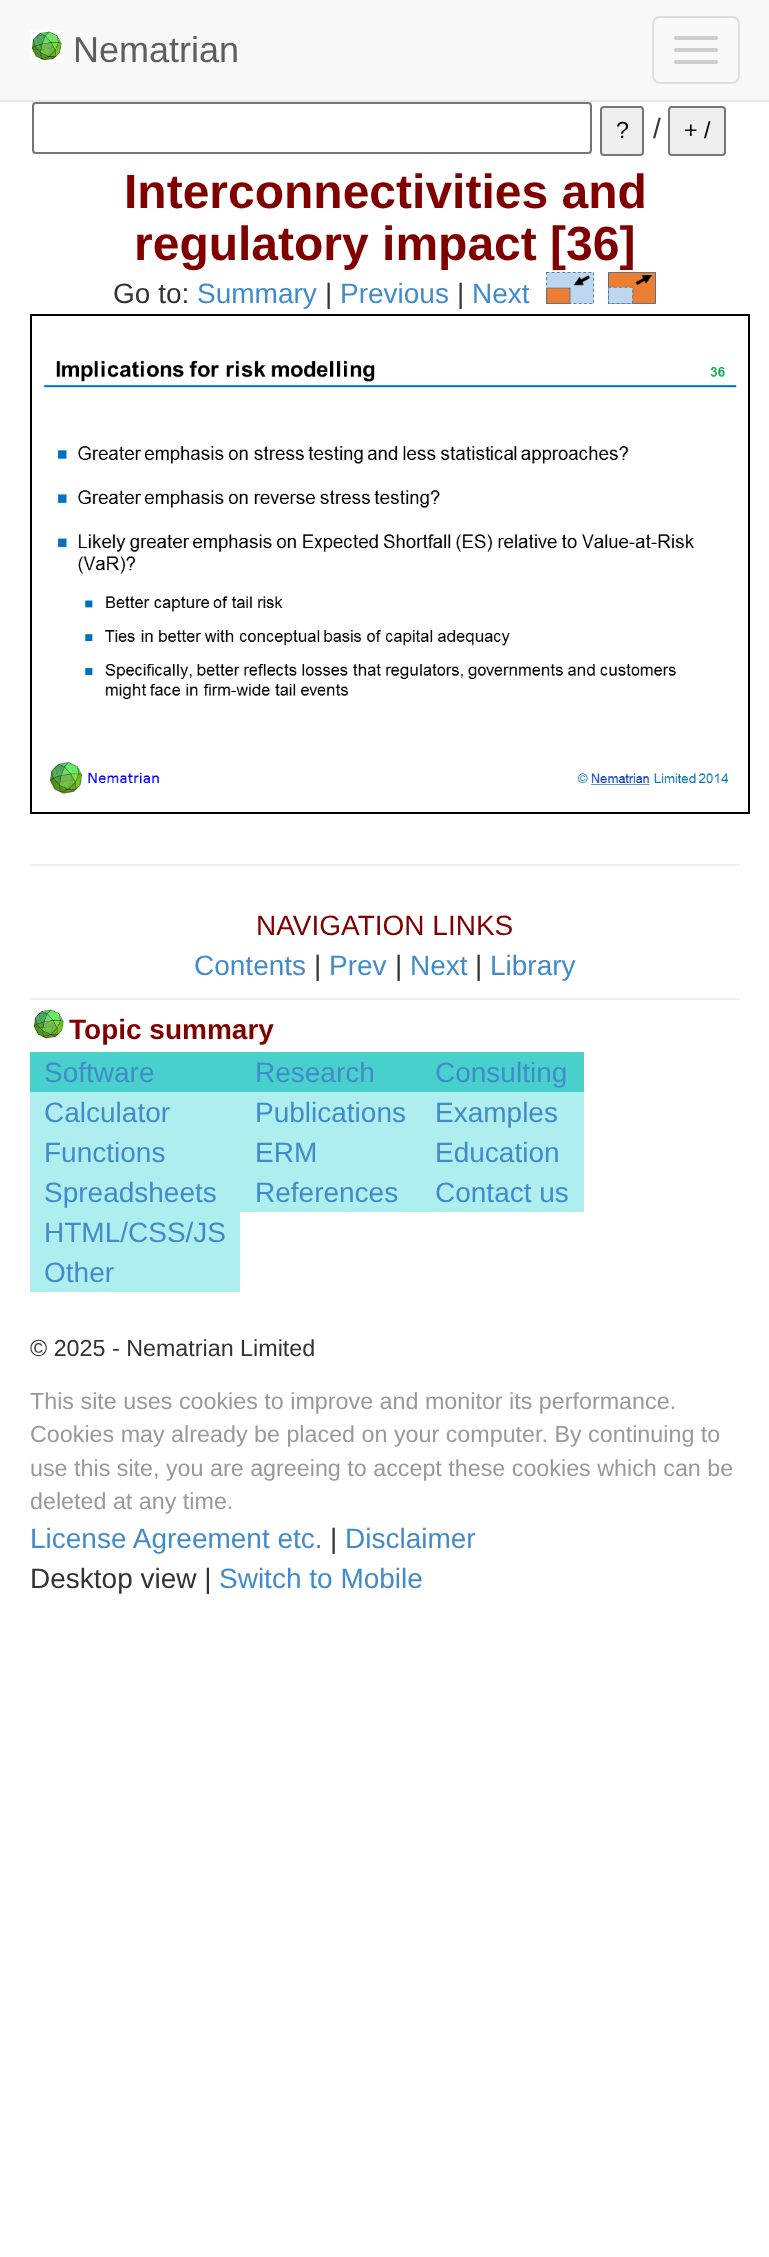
(async () => {
const canvas = document.querySelector("canvas")
canvas.width = 769
canvas.height = 2257
const c = canvas.getContext("2d")
c.miterLimit = 4
c.fontKerning = "normal"
function T(s,x,y){c.fillText(s,x,y)}
function R(x,y,w,h){c.fillRect(x,y,w,h)}
function Q(x,y,w,h,r){c.beginPath();c.roundRect(x,y,w,h,r);c.fill()}
async function I(src,x,y,w,h){const img=new Image();img.src=src;await img.decode();c.drawImage(img,x,y,w,h)}
c.fillStyle="#fff"
R(0,0,769,2257)
c.fillStyle="#f8f8f8"
R(0,0,769,100)
c.fillStyle="#e7e7e7"
R(0,100,769,2)
await I("1.png",30,30,34,32)
c.font="36px Liberation Sans"
c.fillStyle="#5e5e5e"
T("Nematrian",73,62)
c.beginPath()
c.roundRect(653,17,86,66,7)
c.strokeStyle="#ddd"
c.lineWidth=2
c.stroke()
c.fillStyle="#ccc"
Q(674,36,44,4,2)
Q(674,48,44,4,2)
Q(674,60,44,4,2)
c.beginPath()
c.roundRect(33,103,558,50,3)
c.strokeStyle="#767676"
c.stroke()
c.fillStyle="#efefef"
c.beginPath()
c.roundRect(601,107,42,48,3)
c.fill()
c.stroke()
c.font="23.3px Liberation Sans"
c.fillStyle="#000"
T("?",616,138)
c.font="28px Liberation Sans"
c.fillStyle="#333"
T("/",653,138)
c.fillStyle="#efefef"
c.beginPath()
c.roundRect(669,107,56,48,3)
c.fill()
c.stroke()
c.font="23.3px Liberation Sans"
c.fillStyle="#000"
T("+ /",684,138)
c.font="bold 48px Liberation Sans"
c.fillStyle="#800000"
T("Interconnectivities and",124,208)
T("regulatory impact [36]",134,260)
c.font="28px Liberation Sans"
c.fillStyle="#333"
T("Go to:",113,303)
c.fillStyle="#428bca"
T("Summary",197,303)
c.fillStyle="#333"
T("|",325,303)
c.fillStyle="#428bca"
T("Previous",340,303)
c.fillStyle="#333"
T("|",457,303)
c.fillStyle="#428bca"
T("Next",472,303)
await I("2.png",546,272,48,32)
await I("3.png",608,272,48,32)
c.strokeStyle="#000"
c.strokeRect(31,315,718,498)
await I("4.png",43,360,694,434)
c.fillStyle="#eee"
R(30,864,710,2)
c.fillStyle="#800000"
T("NAVIGATION LINKS",256,935)
c.fillStyle="#428bca"
T("Contents",194,975)
c.fillStyle="#333"
T("|",314,975)
c.fillStyle="#428bca"
T("Prev",329,975)
c.fillStyle="#333"
T("|",395,975)
c.fillStyle="#428bca"
T("Next",410,975)
c.fillStyle="#333"
T("|",475,975)
c.fillStyle="#428bca"
T("Library",490,975)
c.fillStyle="#eee"
R(30,998,710,2)
await I("5.png",32,1008,32,31)
c.font="bold 28px Liberation Sans"
c.fillStyle="#800000"
T("Topic summary",69,1039)
c.fillStyle="#48d1cc"
R(30,1052,554,40)
c.font="28px Liberation Sans"
c.fillStyle="#428bca"
T("Software",44,1082)
T("Research",255,1082)
T("Consulting",435,1082)
c.fillStyle="#afeeee"
R(30,1092,554,40)
c.fillStyle="#428bca"
T("Calculator",44,1122)
T("Publications",255,1122)
T("Examples",435,1122)
c.fillStyle="#afeeee"
R(30,1132,554,40)
c.fillStyle="#428bca"
T("Functions",44,1162)
T("ERM",255,1162)
T("Education",435,1162)
c.fillStyle="#afeeee"
R(30,1172,554,40)
c.fillStyle="#428bca"
T("Spreadsheets",44,1202)
T("References",255,1202)
T("Contact us",435,1202)
c.fillStyle="#afeeee"
R(30,1212,210,80)
c.fillStyle="#428bca"
T("HTML/CSS/JS",44,1242)
T("Other",44,1282)
c.font="23.3px Liberation Sans"
c.fillStyle="#333"
T("© 2025 - Nematrian Limited",30,1356)
c.fillStyle="#999"
T("This site uses cookies to improve and monitor its performance.",30,1409)
T("Cookies may already be placed on your computer. By continuing to",30,1442)
T("use this site, you are agreeing to accept these cookies which can be",30,1476)
T("deleted at any time.",30,1509)
c.font="28px Liberation Sans"
c.fillStyle="#428bca"
T("License Agreement etc.",30,1548)
c.fillStyle="#333"
T("|",330,1548)
c.fillStyle="#428bca"
T("Disclaimer",345,1548)
c.fillStyle="#333"
T("Desktop view |",30,1588)
c.fillStyle="#428bca"
T("Switch to Mobile",219,1588)
})()
